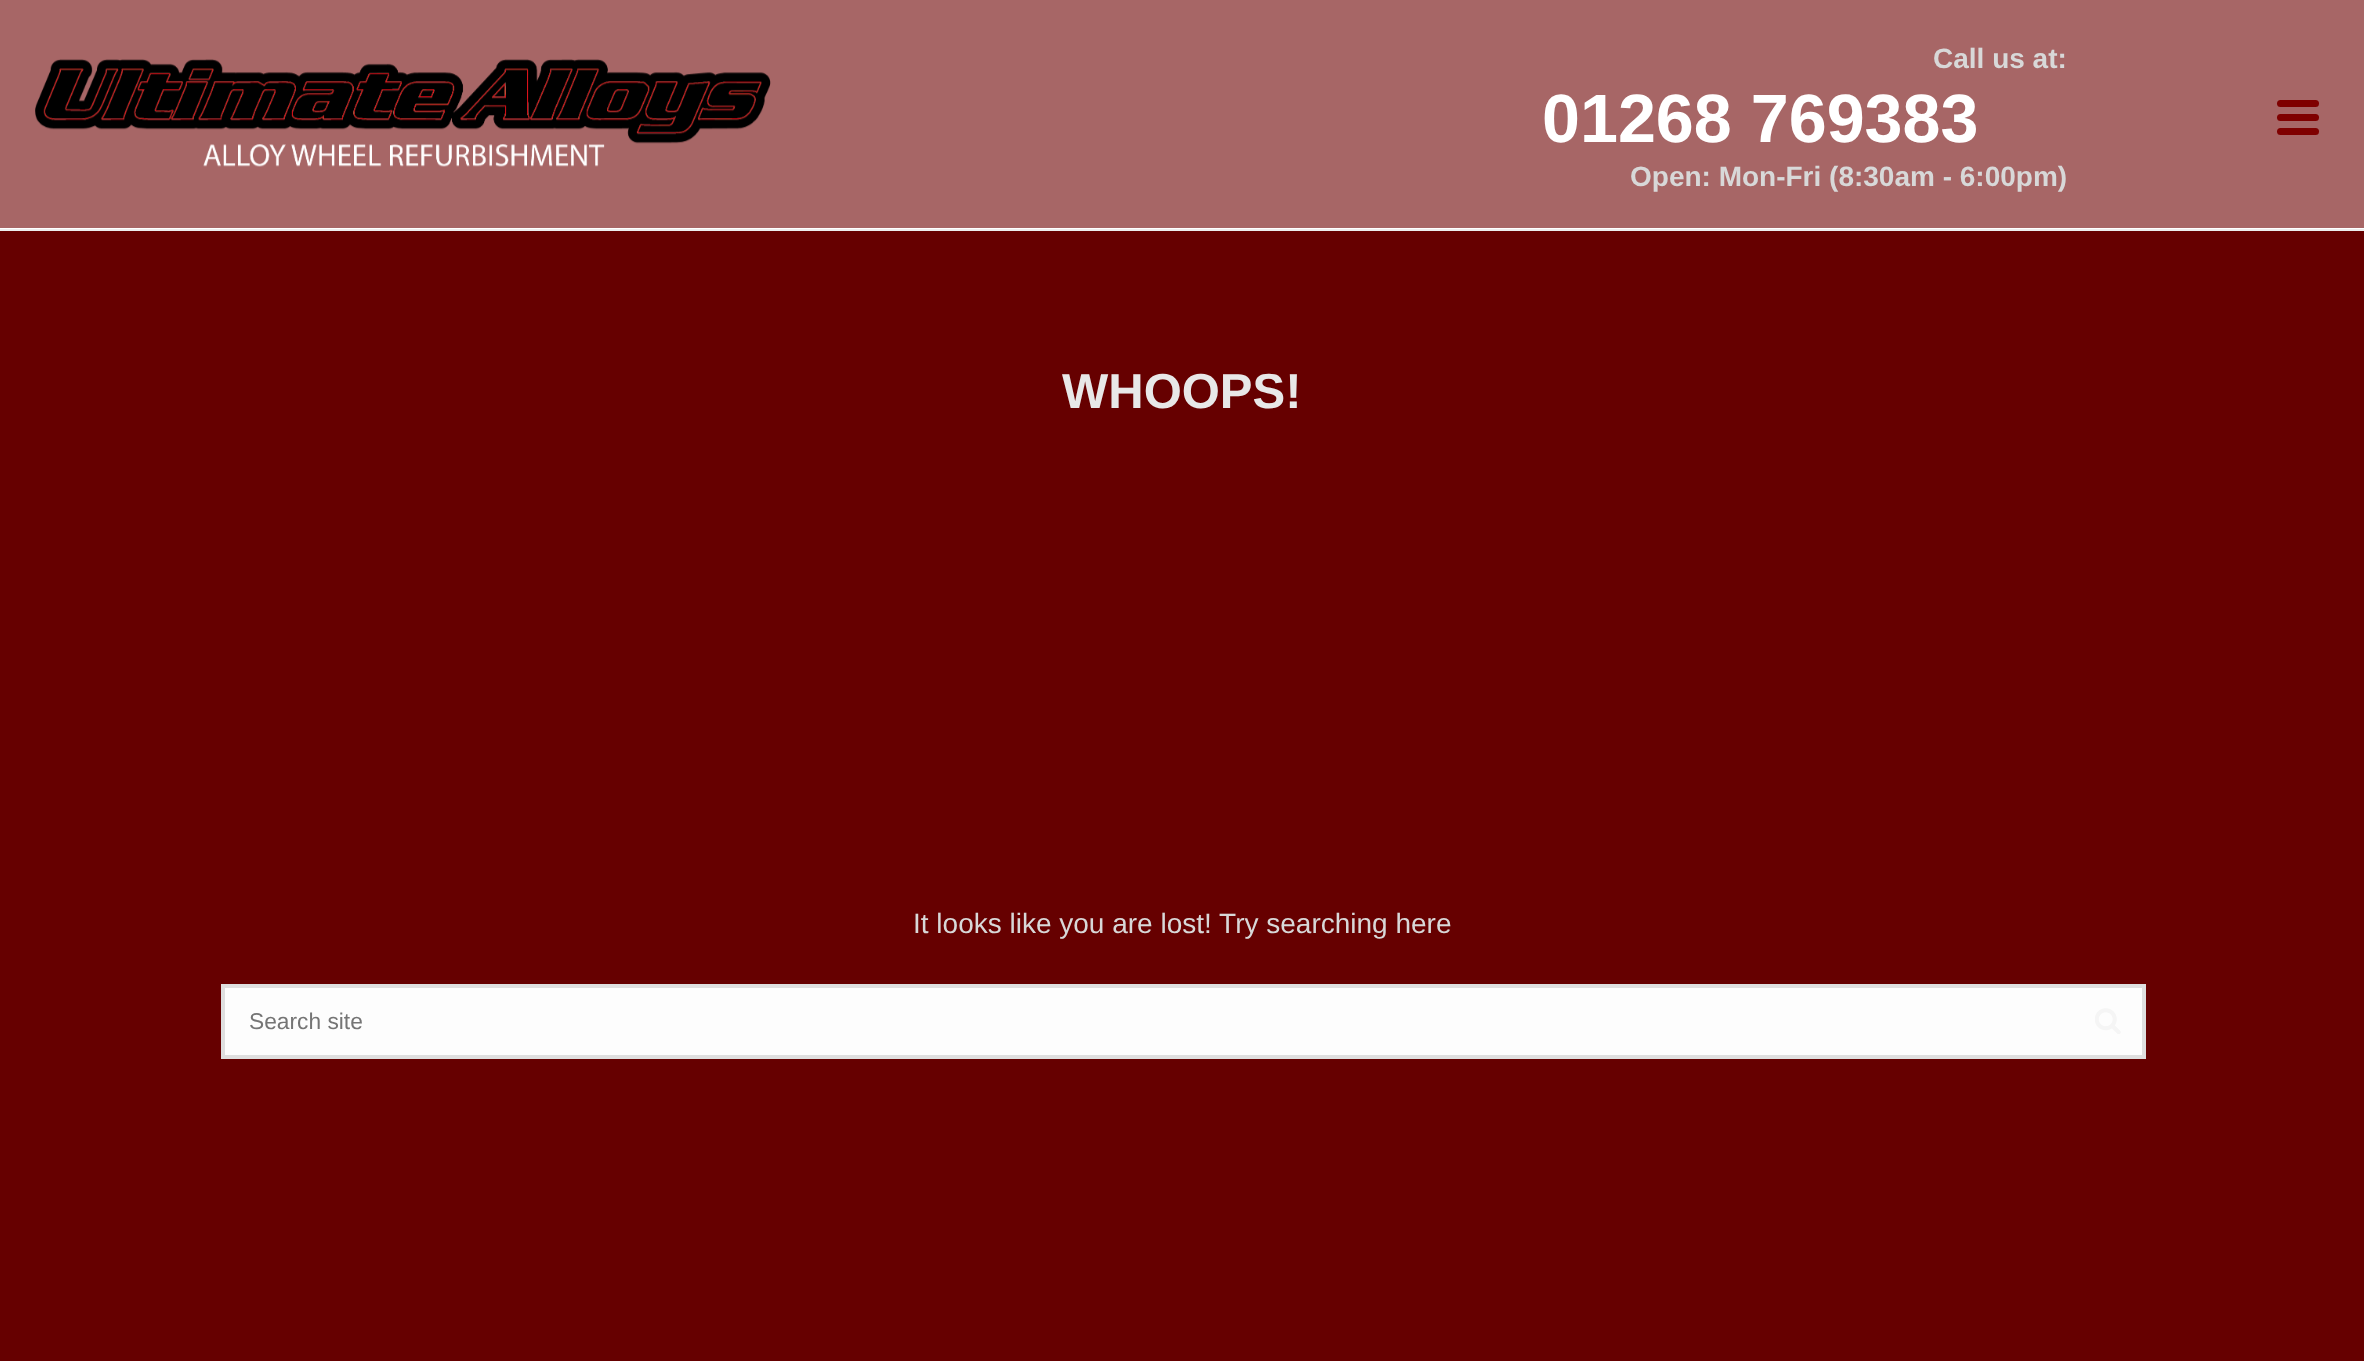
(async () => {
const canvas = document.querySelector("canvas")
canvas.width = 2364
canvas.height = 1361
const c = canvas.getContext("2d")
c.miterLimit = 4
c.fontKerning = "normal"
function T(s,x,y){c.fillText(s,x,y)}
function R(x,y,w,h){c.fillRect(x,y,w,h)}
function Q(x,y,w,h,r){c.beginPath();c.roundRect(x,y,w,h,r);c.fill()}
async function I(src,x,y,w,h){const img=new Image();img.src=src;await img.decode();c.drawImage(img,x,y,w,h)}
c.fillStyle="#fff"
R(0,0,2364,1361)
c.fillStyle="#ededed"
R(0,229,2364,2)
c.fillStyle="#a76666"
R(0,0,2364,228)
c.font="bold 28px Liberation Sans"
c.fillStyle="#d8d8d8"
T("Call us at:",1933,68)
c.font="bold 68.25px Liberation Sans"
c.fillStyle="#fff"
T("01268 769383",1542,142)
c.font="bold 28px Liberation Sans"
c.fillStyle="#d8d8d8"
T("Open: Mon-Fri (8:30am - 6:00pm)",1630,186)
await I("1.png",35,59,736,108)
c.fillStyle="#7f0000"
Q(2277,100,42,7,3.5)
Q(2277,114,42,7,3.5)
Q(2277,128,42,7,3.5)
c.fillStyle="#600"
R(0,231,2364,1130)
c.font="bold 49px Liberation Sans"
c.fillStyle="#e8e8e8"
T("WHOOPS!",1062,408)
c.font="28px Liberation Sans"
c.fillStyle="#d8d8d8"
T("It looks like you are lost! Try searching here",913,933)
c.fillStyle="#fdfdfd"
c.beginPath()
c.rect(223,986,1921,71)
c.fill()
c.strokeStyle="#dfdfdf"
c.lineWidth=4
c.stroke()
c.font="22.75px Liberation Sans"
c.fillStyle="#757575"
T("Search site",249,1029)
await I("2.png",2095,1008,26,26)
})()
